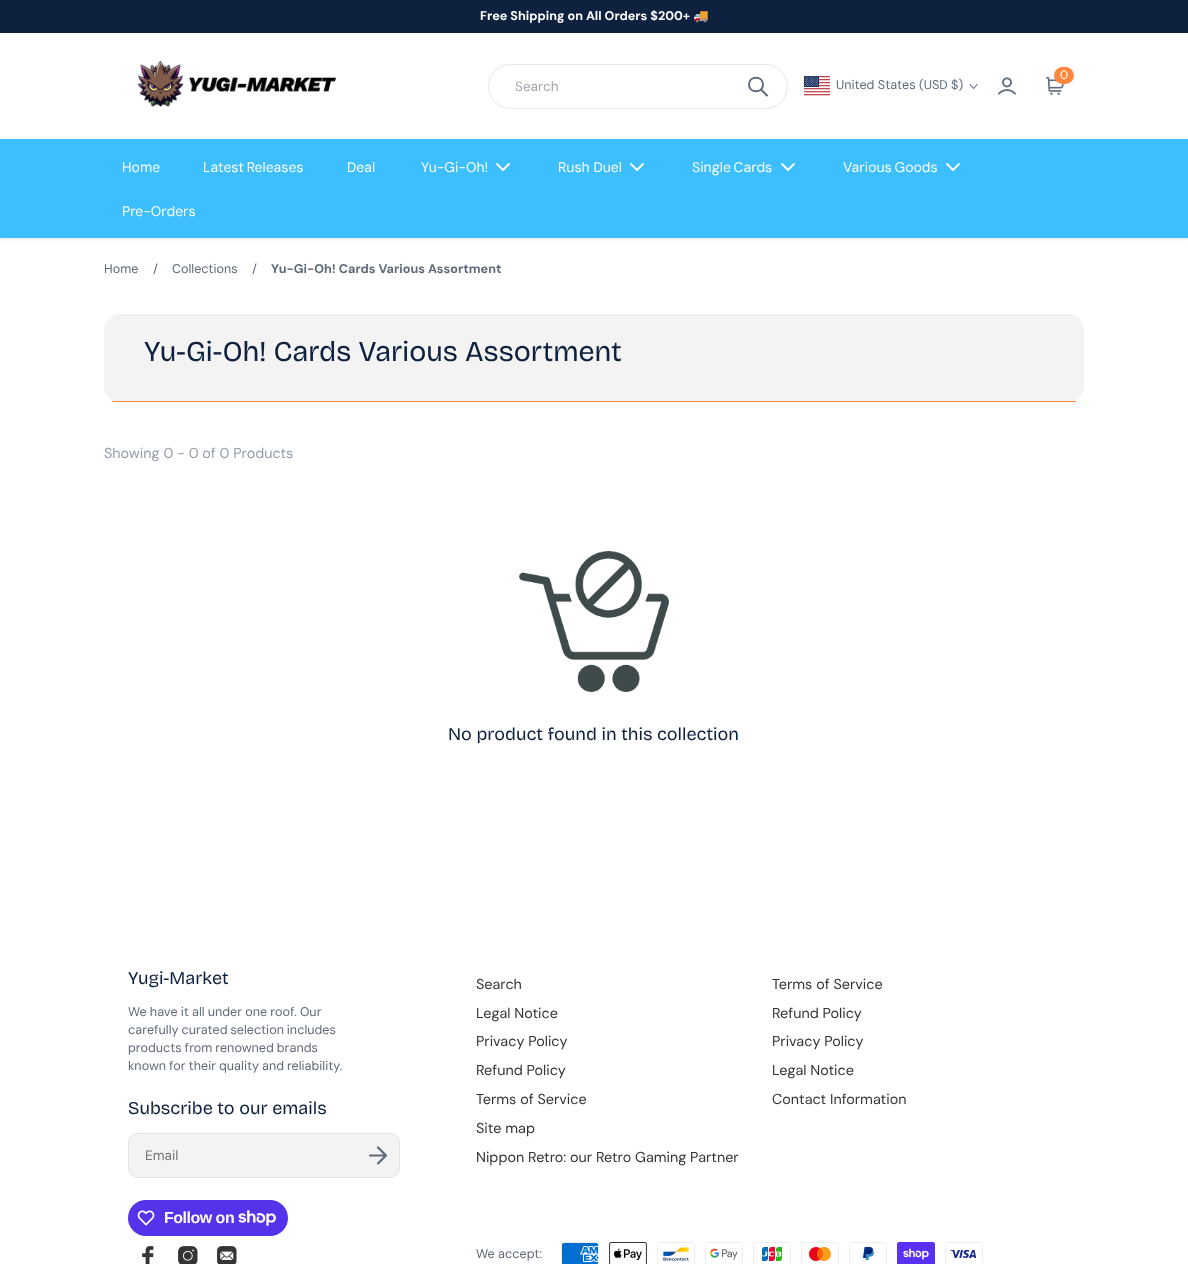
(async () => {
const canvas = document.querySelector("canvas")
canvas.width = 1188
canvas.height = 1264
const c = canvas.getContext("2d")
c.miterLimit = 4
c.fontKerning = "normal"
function T(s,x,y){c.fillText(s,x,y)}
function R(x,y,w,h){c.fillRect(x,y,w,h)}
function Q(x,y,w,h,r){c.beginPath();c.roundRect(x,y,w,h,r);c.fill()}
async function I(src,x,y,w,h){const img=new Image();img.src=src;await img.decode();c.drawImage(img,x,y,w,h)}
let path
c.fillStyle="#fff"
R(0,0,1188,1264)
c.fillStyle="#0e2240"
R(0,0,1188,33)
c.font="bold 12.6px DM Sans"
c.fillStyle="#fff"
T("Free Shipping on All Orders $200+",480,20)
c.font="bold 12.6px Noto Color Emoji"
T("🚚",693,20)
c.fillStyle="#0000001a"
c.filter="blur(1.5px)"
c.beginPath()
c.rect(0,34,1188,205)
c.fill()
c.filter="none"
c.fillStyle="#fff"
R(0,33,1188,106)
await I("1.png",137,60,199,47)
c.beginPath()
c.roundRect(488.5,64.5,299,44,22)
c.strokeStyle="#e6e6e6"
c.stroke()
c.font="13.5px DM Sans"
c.fillStyle="#9ea5af"
T("Search",515,91)
path = new Path2D("M767 95.5l-6-6m2-5c0 9-14 9-14 0c0-9 14-9 14 0z")
c.strokeStyle="#5e6979"
c.lineWidth=2
c.lineCap="round"
c.lineJoin="round"
c.stroke(path)
await I("2.png",1046,77,18,18)
c.fillStyle="#ff873d"
Q(1054,67,20,17,8.5)
c.font="12px 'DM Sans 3'"
c.fillStyle="#fff"
T("0",1060,79)
await I("3.png",804,76,26,20)
c.font="12.6px DM Sans"
c.fillStyle="#5e6979"
T("United States (USD $)",836,89)
path = new Path2D("M970 84.5l3.5 4l3.5-4")
c.lineWidth=1.1
c.stroke(path)
await I("4.png",998,77,18,18)
c.fillStyle="#3dbeff"
R(0,139,1188,99)
c.font="14px DM Sans"
c.fillStyle="#fff"
T("Home",122,172)
c.wordSpacing="-1px"
T("Latest Releases",203,172)
c.wordSpacing="0px"
T("Deal",347,172)
T("Yu-Gi-Oh!",421,172)
path = new Path2D("M497 164l6 6l6-6")
c.strokeStyle="#fff"
c.lineWidth=1.8
c.stroke(path)
T("Rush Duel",558,172)
path = new Path2D("M631 164l6 6l6-6")
c.stroke(path)
c.wordSpacing="-1px"
T("Single Cards",692,172)
path = new Path2D("M782 164l6 6l6-6")
c.stroke(path)
T("Various Goods",843,172)
path = new Path2D("M947 164l6 6l6-6")
c.stroke(path)
c.wordSpacing="0px"
T("Pre-Orders",122,216)
c.font="12.6px DM Sans"
c.fillStyle="#5e6979"
T("Home",104,273)
T("/",153,273)
T("Collections",172,273)
T("/",252,273)
c.font="bold 12.6px DM Sans"
T("Yu-Gi-Oh! Cards Various Assortment",271,273)
c.fillStyle="#f3f3f3"
Q(104,314,980,88,16)
c.fillStyle="#ff873d"
R(112,401,964,1)
c.font="28.75px Bricolage Grotesque"
c.fillStyle="#0e2240"
T("Yu-Gi-Oh! Cards Various Assortment",144,361)
c.font="14.4px 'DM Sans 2'"
c.fillStyle="#929cab"
T("Showing 0 - 0 of 0 Products",104,458)
await I("5.png",519,551,150,141)
c.font="18px 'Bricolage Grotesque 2'"
c.fillStyle="#0e2240"
T("No product found in this collection",448,740)
T("Yugi-Market",128,984)
c.wordSpacing="-0.25px"
c.font="12.6px DM Sans"
c.fillStyle="#5e6979"
T("We have it all under one roof. Our",128,1016)
c.wordSpacing="-0.5px"
T("carefully curated selection includes",128,1034)
T("products from renowned brands",128,1052)
T("known for their quality and reliability.",128,1070)
c.wordSpacing="0px"
c.font="18px 'Bricolage Grotesque 2'"
c.fillStyle="#0e2240"
T("Subscribe to our emails",128,1114)
c.fillStyle="#f3f3f3"
c.beginPath()
c.roundRect(128.5,1133.5,271,44,9.5)
c.fill()
c.strokeStyle="#e2e4e8"
c.lineWidth=1
c.lineJoin="miter"
c.stroke()
c.font="13.5px DM Sans"
c.fillStyle="#757575"
T("Email",145,1160)
path = new Path2D("M370 1155.5h16m0 0l-8-8m8 8l-8 8")
c.strokeStyle="#5e6979"
c.lineWidth=2.2
c.lineJoin="round"
c.stroke(path)
c.fillStyle="#5433eb"
Q(128,1200,160,36,18)
await I("6.png",137,1210,18,16)
c.letterSpacing="-0.5px"
c.font="bold 16px Liberation Sans"
c.fillStyle="#fff"
T("Follow on",164,1223)
await I("7.png",238,1210,38,16)
await I("8.png",142,1246,12,18)
await I("9.png",178,1246,20,18)
await I("10.png",217,1246,20,18)
c.letterSpacing="0px"
c.font="14.4px 'DM Sans 2'"
c.fillStyle="#343435"
T("Search",476,989)
T("Legal Notice",476,1018)
T("Privacy Policy",476,1046)
T("Refund Policy",476,1075)
T("Terms of Service",476,1104)
T("Site map",476,1133)
T("Nippon Retro: our Retro Gaming Partner",476,1162)
T("Terms of Service",772,989)
T("Refund Policy",772,1018)
T("Privacy Policy",772,1046)
T("Legal Notice",772,1075)
T("Contact Information",772,1104)
c.font="12.6px DM Sans"
c.fillStyle="#5e6979"
T("We accept:",476,1258)
await I("11.png",561,1242,38,22)
await I("12.png",609,1242,38,22)
await I("13.png",657,1242,38,22)
await I("14.png",705,1242,38,22)
await I("15.png",753,1242,38,22)
await I("16.png",801,1242,38,22)
await I("17.png",849,1242,38,22)
await I("18.png",897,1242,38,22)
await I("19.png",945,1242,38,22)
})()
